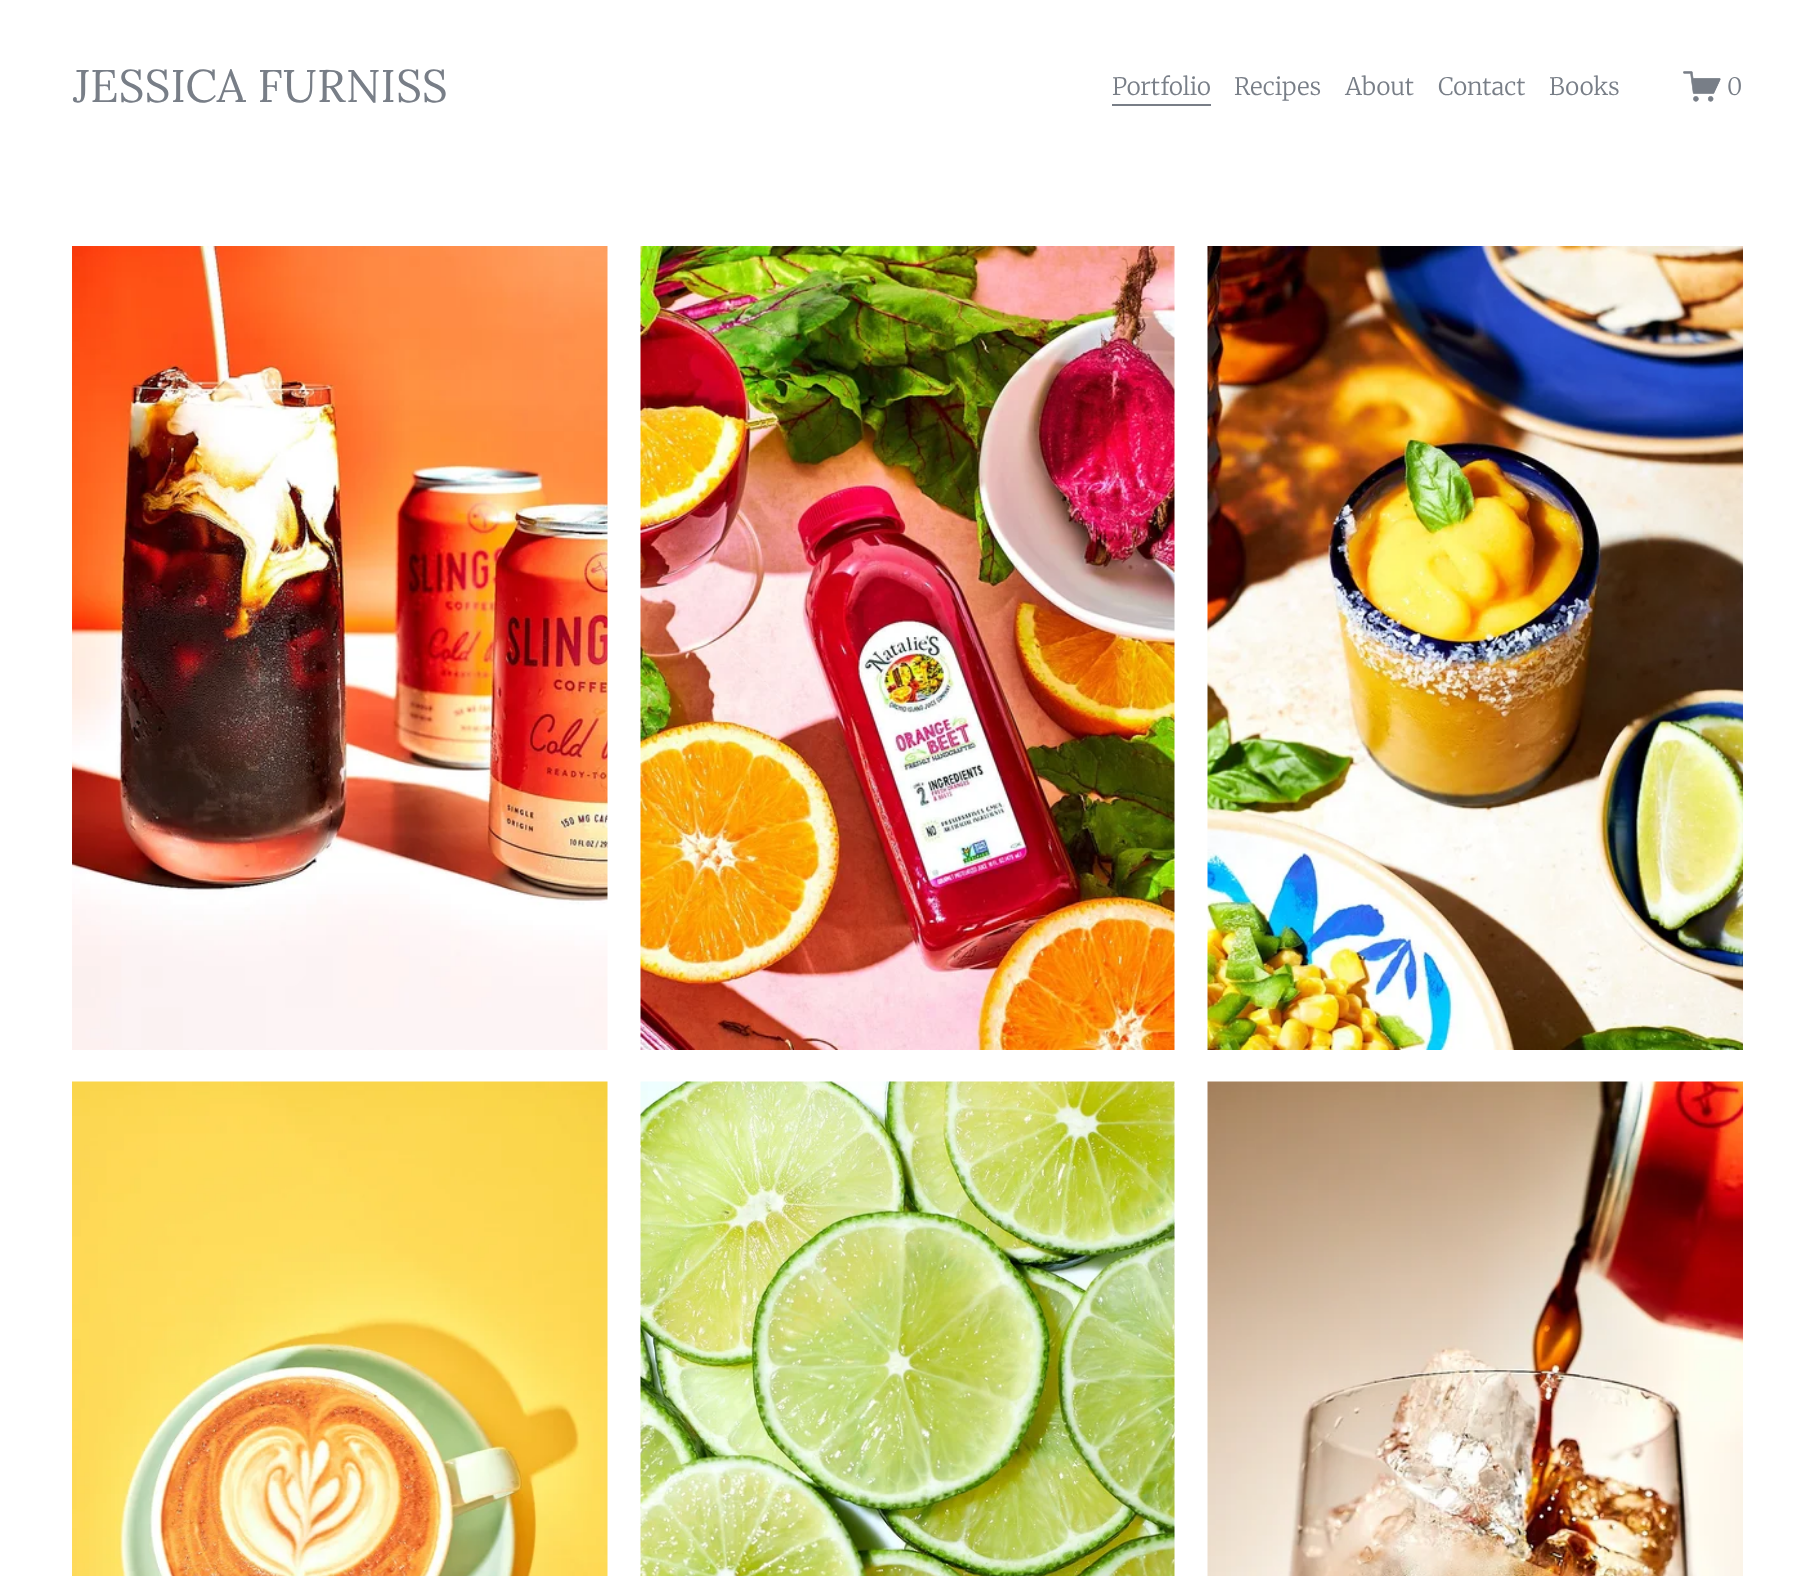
(async () => {
const canvas = document.querySelector("canvas")
canvas.width = 1814
canvas.height = 1576
const c = canvas.getContext("2d")
c.miterLimit = 4
c.fontKerning = "normal"
function T(s,x,y){c.fillText(s,x,y)}
function R(x,y,w,h){c.fillRect(x,y,w,h)}
async function I(src,x,y,w,h){const img=new Image();img.src=src;await img.decode();c.drawImage(img,x,y,w,h)}
c.fillStyle="#fff"
R(0,0,1814,1576)
c.font="45.75px Lora"
c.fillStyle="#787e87"
T("JESSICA FURNISS",73,102)
R(1112,104,99,2)
c.font="300 24px Merriweather"
T("Portfolio",1112,95)
T("Recipes",1234,95)
T("About",1345,95)
T("Contact",1438,95)
T("Books",1549,95)
await I("1.png",1683,71,38,31)
T("0",1727,95)
await I("2.png",72,246,536,804)
await I("3.png",640,246,535,804)
await I("4.png",1207,246,536,804)
await I("5.png",72,1081,536,495)
await I("6.png",640,1081,535,495)
await I("7.png",1207,1081,536,495)
})()
